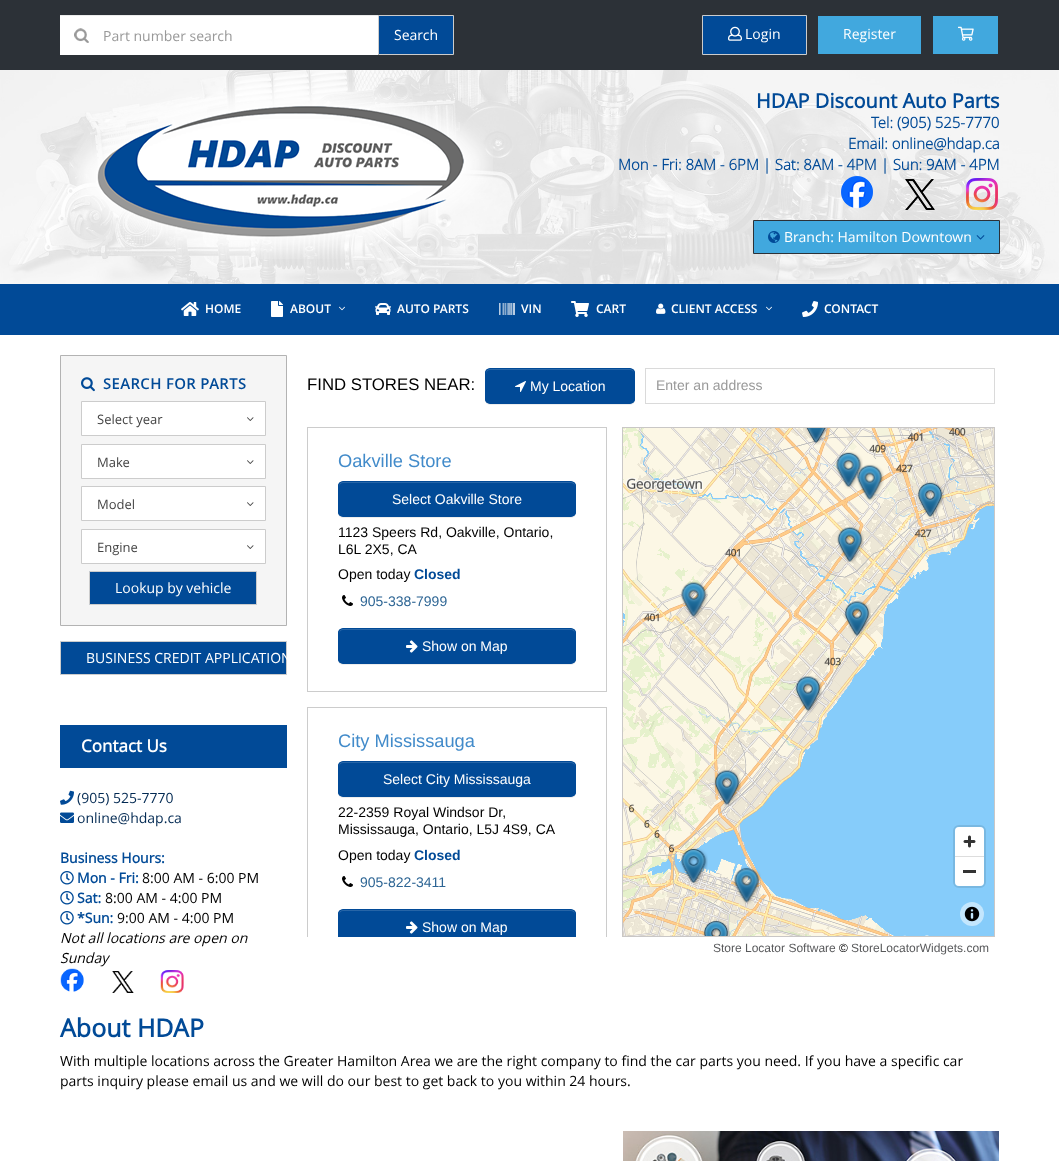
(async () => {
const canvas = document.querySelector("canvas")
canvas.width = 1059
canvas.height = 1161
const c = canvas.getContext("2d")
c.miterLimit = 4
c.fontKerning = "normal"
function T(s,x,y){c.fillText(s,x,y)}
function R(x,y,w,h){c.fillRect(x,y,w,h)}
function Q(x,y,w,h,r){c.beginPath();c.roundRect(x,y,w,h,r);c.fill()}
async function I(src,x,y,w,h){const img=new Image();img.src=src;await img.decode();c.drawImage(img,x,y,w,h)}
let path
c.fillStyle="#fff"
R(0,0,1059,1161)
c.fillStyle="#2c3137"
R(0,0,1059,70)
c.fillStyle="#fff"
R(60,16,318,39)
await I("1.png",74,28,15,15)
c.fillStyle="#ececec"
R(60,15,320,1)
c.font="14px Open Sans"
c.fillStyle="#999"
T("Part number search",103,41)
c.fillStyle="#014a97"
c.beginPath()
c.rect(378.5,15.5,75,39)
c.fill()
c.strokeStyle="#ccc"
c.stroke()
c.fillStyle="#fff"
T("Search",394,40)
c.fillStyle="#014a97"
c.beginPath()
c.rect(702.5,15.5,104,39)
c.fill()
c.stroke()
await I("2.png",728,26,14,15)
c.fillStyle="#fff"
T("Login",745,39)
c.fillStyle="#41a8de"
R(818,16,103,38)
c.fillStyle="#fff"
T("Register",843,39)
c.fillStyle="#41a8de"
R(933,16,65,38)
await I("3.png",958,26,16,15)
await I("4.png",0,70,1059,214)
await I("5.png",69,82,424,177)
c.font="bold 20px Open Sans"
c.fillStyle="#014a97"
T("HDAP Discount Auto Parts",756,108)
c.font="bold 15px 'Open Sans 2'"
T("Tel: (905) 525-7770",871,128)
T("Email: online@hdap.ca",848,149)
T("Mon - Fri: 8AM - 6PM | Sat: 8AM - 4PM | Sun: 9AM - 4PM",618,170)
await I("6.png",841,176,32,32)
await I("7.png",905,179,30,31)
await I("8.png",966,178,32,32)
c.fillStyle="#41a8de"
c.beginPath()
c.rect(753.5,220.5,246,33)
c.fill()
c.strokeStyle="#2c3137"
c.stroke()
await I("9.png",768,231,12,12)
c.font="14px Open Sans"
c.fillStyle="#fff"
T("Branch: Hamilton Downtown",784,242)
await I("10.png",976,235,9,5)
c.fillStyle="#014a97"
R(0,284,1059,51)
await I("11.png",181,302,18,14)
c.font="600 12px Open Sans"
c.fillStyle="#fff"
T("HOME",205,313)
await I("12.png",271,301,12,16)
T("ABOUT",290,313)
await I("13.png",339,306,6,5)
await I("14.png",375,303,16,12)
T("AUTO PARTS",397,313)
await I("15.png",499,303,16,12)
T("VIN",521,313)
await I("16.png",571,301,18,16)
T("CART",596,313)
await I("17.png",656,303,10,11)
T("CLIENT ACCESS",671,313)
await I("13.png",766,306,6,5)
await I("18.png",802,301,16,16)
T("CONTACT",824,313)
c.fillStyle="#f5f5f5"
c.beginPath()
c.rect(60.5,355.5,226,270)
c.fill()
c.strokeStyle="#b3b3b3"
c.stroke()
await I("19.png",81,377,14,15)
c.letterSpacing="0.3px"
c.font="600 15px Open Sans"
c.fillStyle="#014a97"
T("SEARCH FOR PARTS",103,389)
c.fillStyle="#fff"
c.beginPath()
c.rect(81.5,401.5,184,34)
c.fill()
c.strokeStyle="#ccc"
c.stroke()
c.letterSpacing="0px"
c.font="13px Open Sans"
c.fillStyle="#444"
T("Select year",97,424)
await I("20.png",247,417,7,4)
c.fillStyle="#fff"
c.beginPath()
c.rect(81.5,444.5,184,34)
c.fill()
c.stroke()
c.fillStyle="#444"
T("Make",97,467)
await I("20.png",247,460,7,4)
c.fillStyle="#fff"
c.beginPath()
c.rect(81.5,486.5,184,34)
c.fill()
c.stroke()
c.fillStyle="#444"
T("Model",97,509)
await I("20.png",247,502,7,4)
c.fillStyle="#fff"
c.beginPath()
c.rect(81.5,529.5,184,34)
c.fill()
c.stroke()
c.fillStyle="#444"
T("Engine",97,552)
await I("20.png",247,545,7,4)
c.fillStyle="#014a97"
c.beginPath()
c.rect(89.5,571.5,167,33)
c.fill()
c.stroke()
c.font="14px Open Sans"
c.fillStyle="#fff"
T("Lookup by vehicle",115,593)
c.fillStyle="#014a97"
c.beginPath()
c.rect(60.5,641.5,226,33)
c.fill()
c.stroke()
c.fillStyle="#fff"
T("BUSINESS CREDIT APPLICATION",86,663)
c.fillStyle="#014a97"
R(60,725,227,43)
c.font="bold 17px Open Sans"
c.fillStyle="#fff"
T("Contact Us",81,752)
await I("21.png",60,790,14,15)
c.font="14px Open Sans"
c.fillStyle="#022952"
T("(905) 525-7770",77,803)
await I("22.png",60,812,14,11)
T("online@hdap.ca",77,823)
c.font="bold 14px Open Sans"
c.fillStyle="#014a97"
T("Business Hours:",60,863)
await I("23.png",60,871,14,14)
T("Mon - Fri:",77,883)
c.font="14px Open Sans"
c.fillStyle="#000"
T("8:00 AM - 6:00 PM",142,883)
await I("23.png",60,891,14,14)
c.font="bold 14px Open Sans"
c.fillStyle="#014a97"
T("Sat:",77,903)
c.font="14px Open Sans"
c.fillStyle="#000"
T("8:00 AM - 4:00 PM",105,903)
await I("23.png",60,911,14,14)
c.font="bold 14px Open Sans"
c.fillStyle="#014a97"
T("*Sun:",77,923)
c.font="14px Open Sans"
c.fillStyle="#000"
T("9:00 AM - 4:00 PM",117,923)
c.font="italic 14px Open Sans"
T("Not all locations are open on",60,943)
T("Sunday",60,963)
await I("24.png",60,968,24,24)
await I("25.png",112,971,22,22)
await I("26.png",160,970,24,23)
c.font="16.75px Liberation Sans"
T("FIND STORES NEAR:",307,390)
c.fillStyle="#00000012"
c.filter="blur(0.5px)"
c.beginPath()
c.roundRect(485,369,150,36,5)
c.fill()
c.filter="none"
c.save()
c.beginPath()
c.roundRect(485,368,150,36,5)
c.clip()
c.fillStyle="#014a97"
R(485,369,150,34)
c.restore()
c.fillStyle="#2765a7"
path = new Path2D("M490 370h140c2 0 4 2 4 4c0-2-1-4-3-5h-141c-3 0-4 2-4 5c0-2 2-4 4-4z")
c.fill(path)
c.beginPath()
c.roundRect(485.5,368.5,149,35,4.5)
c.strokeStyle="#014a97"
c.stroke()
await I("27.png",515,381,11,11)
c.font="14px Liberation Sans"
c.fillStyle="#fff"
T("My Location",530,391)
c.strokeStyle="#dadada"
c.strokeRect(645.5,368.5,349,35)
c.fillStyle="#999"
T("Enter an address",656,390)
c.strokeStyle="#ccc"
c.strokeRect(307.5,427.5,299,264)
c.font="18.25px Liberation Sans"
c.fillStyle="#428bca"
T("Oakville Store",338,467)
c.fillStyle="#00000012"
c.filter="blur(0.5px)"
c.beginPath()
c.roundRect(338,482,238,36,5)
c.fill()
c.filter="none"
c.save()
c.beginPath()
c.roundRect(338,481,238,36,5)
c.clip()
c.fillStyle="#014a97"
R(338,482,238,34)
c.restore()
c.fillStyle="#2765a7"
path = new Path2D("M343 483h228c2 0 4 2 4 4c0-3-1-5-4-5h-228c-3 0-4 2-4 5c0-2 2-4 4-4z")
c.fill(path)
c.beginPath()
c.roundRect(338.5,481.5,237,35,4.5)
c.strokeStyle="#014a97"
c.stroke()
c.font="14px Liberation Sans"
c.fillStyle="#fff"
T("Select Oakville Store",392,504)
c.fillStyle="#000"
T("1123 Speers Rd, Oakville, Ontario,",338,537)
T("L6L 2X5, CA",338,554)
T("Open today",338,579)
c.font="bold 14px Liberation Sans"
c.fillStyle="#014a97"
T("Closed",414,579)
await I("28.png",342,595,11,11)
c.font="14px Liberation Sans"
c.fillStyle="#2d6594"
T("905-338-7999",360,606)
c.fillStyle="#00000012"
c.filter="blur(0.5px)"
c.beginPath()
c.roundRect(338,629,238,36,5)
c.fill()
c.filter="none"
c.save()
c.beginPath()
c.roundRect(338,628,238,36,5)
c.clip()
c.fillStyle="#014a97"
R(338,629,238,34)
c.restore()
c.fillStyle="#2765a7"
path = new Path2D("M343 630h228c2 0 4 2 4 4c0-3-1-5-4-5h-228c-3 0-4 2-4 5c0-2 2-4 4-4z")
c.fill(path)
c.beginPath()
c.roundRect(338.5,628.5,237,35,4.5)
c.stroke()
await I("29.png",406,640,12,13)
c.fillStyle="#fff"
T("Show on Map",422,651)
c.save()
c.beginPath()
c.rect(307,427,300,510)
c.clip()
c.strokeStyle="#ccc"
c.strokeRect(307.5,707.5,299,265)
c.restore()
c.font="18.25px Liberation Sans"
c.fillStyle="#428bca"
T("City Mississauga",338,747)
c.fillStyle="#00000012"
c.filter="blur(0.5px)"
c.beginPath()
c.roundRect(338,762,238,36,5)
c.fill()
c.filter="none"
c.save()
c.beginPath()
c.roundRect(338,761,238,36,5)
c.clip()
c.fillStyle="#014a97"
R(338,762,238,34)
c.restore()
c.fillStyle="#2765a7"
path = new Path2D("M343 763h228c2 0 4 2 4 4c0-3-1-5-4-5h-228c-3 0-4 2-4 5c0-2 2-4 4-4z")
c.fill(path)
c.beginPath()
c.roundRect(338.5,761.5,237,35,4.5)
c.stroke()
c.font="14px Liberation Sans"
c.fillStyle="#fff"
T("Select City Mississauga",383,784)
c.fillStyle="#000"
T("22-2359 Royal Windsor Dr,",338,817)
T("Mississauga, Ontario, L5J 4S9, CA",338,834)
T("Open today",338,860)
c.font="bold 14px Liberation Sans"
c.fillStyle="#014a97"
T("Closed",414,860)
await I("28.png",342,876,11,11)
c.font="14px Liberation Sans"
c.fillStyle="#2d6594"
T("905-822-3411",360,887)
c.save()
c.beginPath()
c.roundRect(338,909,238,36,5)
c.clip()
c.fillStyle="#014a97"
R(338,910,238,27)
c.restore()
c.fillStyle="#2765a7"
path = new Path2D("M343 911h228c2 0 4 2 4 4c0-3-1-5-4-5h-228c-3 0-4 2-4 5c0-2 2-4 4-4z")
c.fill(path)
c.save()
c.beginPath()
c.rect(308,708,298,229)
c.clip()
c.beginPath()
c.roundRect(338.5,909.5,237,35,4.5)
c.stroke()
c.restore()
await I("29.png",406,921,12,13)
c.fillStyle="#fff"
T("Show on Map",422,932)
c.strokeStyle="#c9c7c6"
c.strokeRect(622.5,427.5,372,509)
await I("30.png",623,428,371,508)
c.beginPath()
c.roundRect(954,826,31,61,5)
c.strokeStyle="#79b8e1"
c.lineWidth=2
c.stroke()
Q(955,827,29,59,4)
await I("31.png",963,835,13,13)
c.fillStyle="#ddd"
R(955,856,29,1)
c.fillStyle="#333"
R(963,870,13,3)
c.fillStyle="#c3e6fd"
c.beginPath()
c.arc(972,914,12,0,7)
c.fill()
await I("32.png",964,906,16,16)
c.font="12px Liberation Sans"
c.fillStyle="#58595b"
T("Store Locator Software",713,952)
c.fillStyle="#000"
T("©",839,952)
c.fillStyle="#58595b"
T("StoreLocatorWidgets.com",851,952)
c.font="bold 25px Open Sans"
c.fillStyle="#014a97"
T("About HDAP",60,1037)
c.font="14px Open Sans"
c.fillStyle="#000"
T("With multiple locations across the Greater Hamilton Area we are the right company to find the car parts you need. If you have a specific car",60,1066)
T("parts inquiry please email us and we will do our best to get back to you within 24 hours.",60,1086)
await I("33.png",623,1131,376,30)
})()
